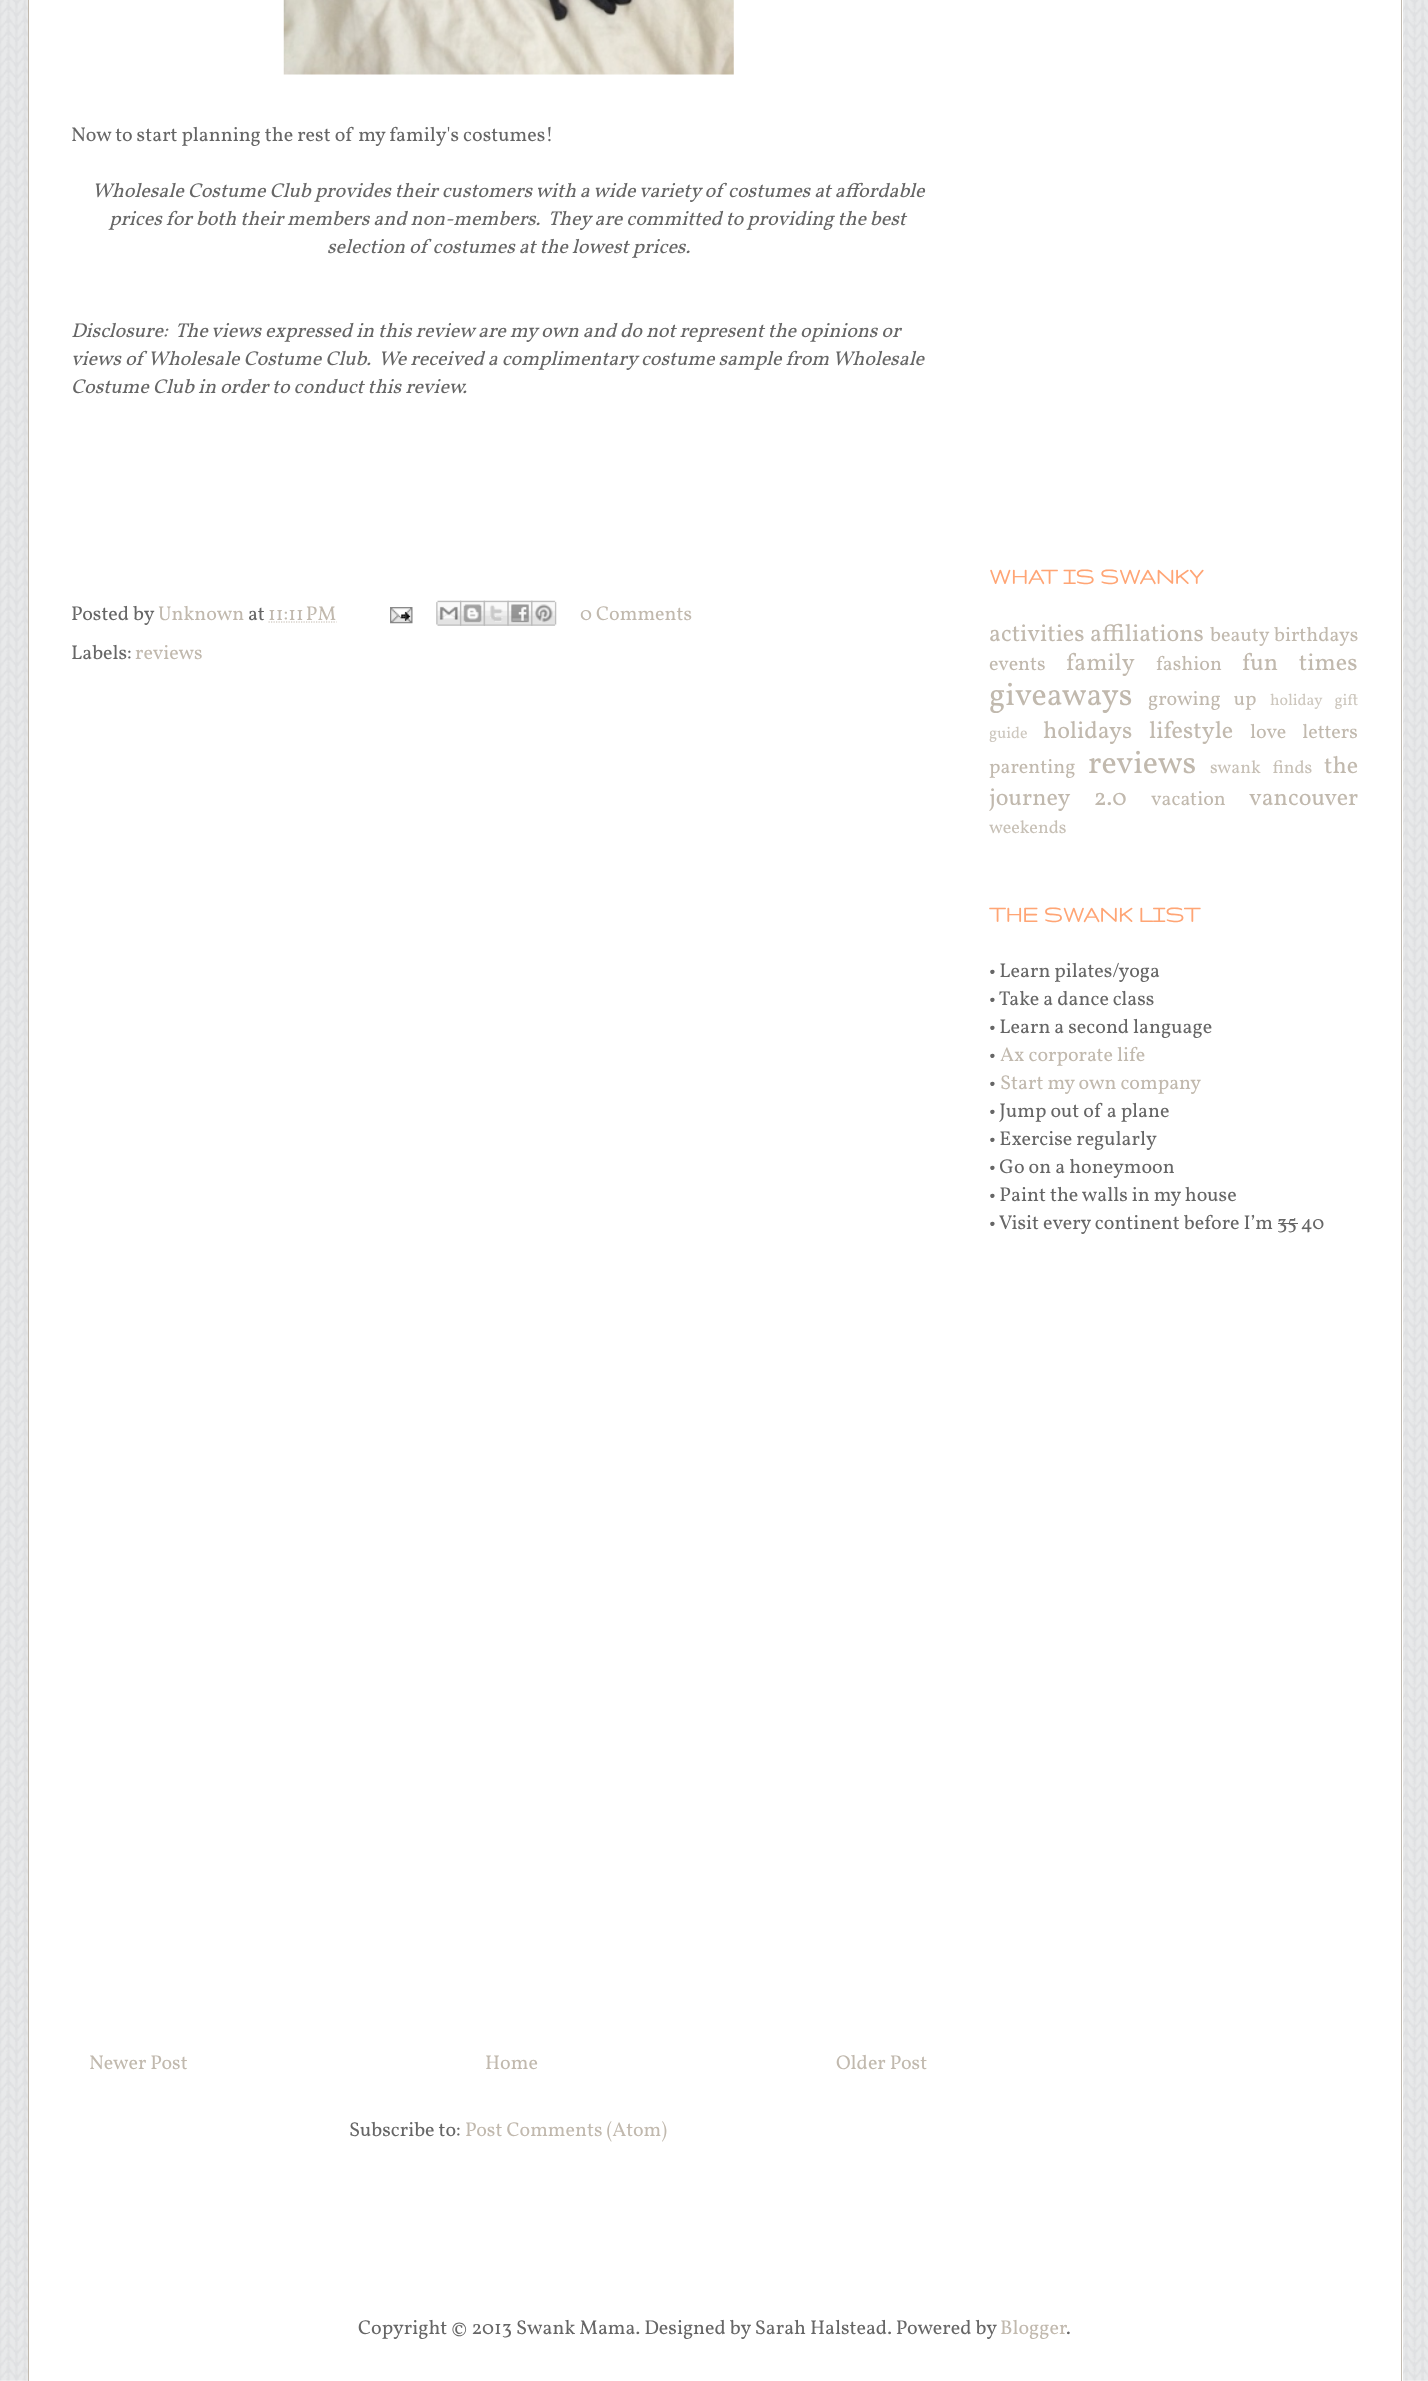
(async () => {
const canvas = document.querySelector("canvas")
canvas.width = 1428
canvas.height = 2381
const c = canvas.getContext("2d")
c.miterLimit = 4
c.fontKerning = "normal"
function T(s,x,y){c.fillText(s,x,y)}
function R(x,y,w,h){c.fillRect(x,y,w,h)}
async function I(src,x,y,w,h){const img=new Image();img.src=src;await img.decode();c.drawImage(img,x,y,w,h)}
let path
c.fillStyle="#fff"
R(0,0,1428,2381)
await I("1.png",0,0,1428,2381)
R(29,0,1374,2381)
c.fillStyle="#c1b9ae"
R(1401,0,1,2381)
R(28,0,1,2381)
await I("2.png",283,0,451,75)
c.font="20px Vollkorn"
c.fillStyle="#666"
T("Now to start planning the rest of my family's costumes!",71,141)
c.font="italic 20px Vollkorn"
T("Wholesale Costume Club provides their customers with a wide variety of costumes at affordable",92,197)
T("prices for both their members and non-members.  They are committed to providing the best",109,225)
T("selection of costumes at the lowest prices.",327,253)
T("Disclosure:",71,337)
T("The views expressed in this review are my own and do not represent the opinions or",175,337)
T("views of Wholesale Costume Club.  We received a complimentary costume sample from Wholesale",71,365)
T("Costume Club in order to conduct this review.",71,393)
c.font="20px Vollkorn"
T("Posted by",71,620)
c.fillStyle="#c1b9ae"
T("Unknown",158,620)
c.fillStyle="#666"
T("at",248,620)
c.fillStyle="#c1b9ae"
T("11:11 PM",268,620)
path = new Path2D("M268.5 622h68")
c.strokeStyle="#c1b9ae"
c.lineWidth=1.2
c.setLineDash([1.25,1.25])
c.stroke(path)
await I("3.png",390,607,23,17)
await I("4.png",436,600,26,26)
await I("5.png",460,600,25,26)
await I("6.png",483,600,26,26)
await I("7.png",507,600,26,26)
await I("8.png",531,600,26,26)
T("0 Comments",580,620)
c.fillStyle="#666"
T("Labels:",71,659)
c.fillStyle="#c1b9ae"
T("reviews",135,659)
T("Newer Post",89,2069)
T("Home",485,2069)
T("Older Post",836,2069)
c.fillStyle="#666"
T("Subscribe to:",349,2136)
c.fillStyle="#c1b9ae"
T("Post Comments (Atom)",465,2136)
c.font="bold 25px Gruppo"
c.fillStyle="#ffa575"
T("WHAT IS SWANKY",989,584)
c.font="24px Vollkorn"
c.fillStyle="#c1b9ae"
T("activities",989,641)
T("affiliations",1090,641)
c.font="20px Vollkorn"
T("beauty",1210,641)
T("birthdays",1274,641)
T("events",989,670)
c.font="24px Vollkorn"
T("family",1066,670)
c.font="20px Vollkorn"
T("fashion",1156,670)
c.wordSpacing="16px"
c.font="24px Vollkorn"
T("fun times",1242,670)
c.wordSpacing="0px"
c.font="32px Vollkorn"
T("giveaways",989,705)
c.wordSpacing="9px"
c.font="20px Vollkorn"
T("growing up",1148,705)
c.font="16px Vollkorn"
c.fillStyle="#cdc7be"
T("holiday gift",1270,705)
c.wordSpacing="0px"
T("guide",989,738)
c.font="24px Vollkorn"
c.fillStyle="#c1b9ae"
T("holidays",1043,738)
T("lifestyle",1149,738)
c.wordSpacing="12px"
c.font="20px Vollkorn"
T("love letters",1250,738)
c.wordSpacing="0px"
T("parenting",989,773)
c.font="32px Vollkorn"
T("reviews",1088,773)
c.wordSpacing="8px"
c.font="18px Vollkorn"
c.fillStyle="#c7c0b6"
T("swank finds",1210,773)
c.wordSpacing="0px"
c.font="24px Vollkorn"
c.fillStyle="#c1b9ae"
T("the",1324,773)
c.wordSpacing="19px"
T("journey 2.0",989,805)
c.wordSpacing="0px"
c.font="20px Vollkorn"
T("vacation",1151,805)
c.font="24px Vollkorn"
T("vancouver",1249,805)
c.font="18px Vollkorn"
c.fillStyle="#c7c0b6"
T("weekends",989,833)
c.font="bold 25px Gruppo"
c.fillStyle="#ffa575"
T("THE SWANK LIST",989,922)
c.font="20px Vollkorn"
c.fillStyle="#666"
T("• Learn pilates/yoga",989,977)
T("• Take a dance class",989,1005)
T("• Learn a second language",989,1033)
T("•",989,1061)
c.fillStyle="#c1b9ae"
T("Ax corporate life",1000,1061)
c.fillStyle="#666"
T("•",989,1089)
c.fillStyle="#c1b9ae"
T("Start my own company",1000,1089)
c.fillStyle="#666"
T("• Jump out of a plane",989,1117)
T("• Exercise regularly",989,1145)
T("• Go on a honeymoon",989,1173)
T("• Paint the walls in my house",989,1201)
T("• Visit every continent before I’m 35 40",989,1229)
R(1278,1223,20,1)
T("Copyright © 2013 Swank Mama. Designed by Sarah Halstead. Powered by",358,2334)
c.fillStyle="#c1b9ae"
T("Blogger",1000,2334)
c.fillStyle="#666"
T(".",1066,2334)
})()
